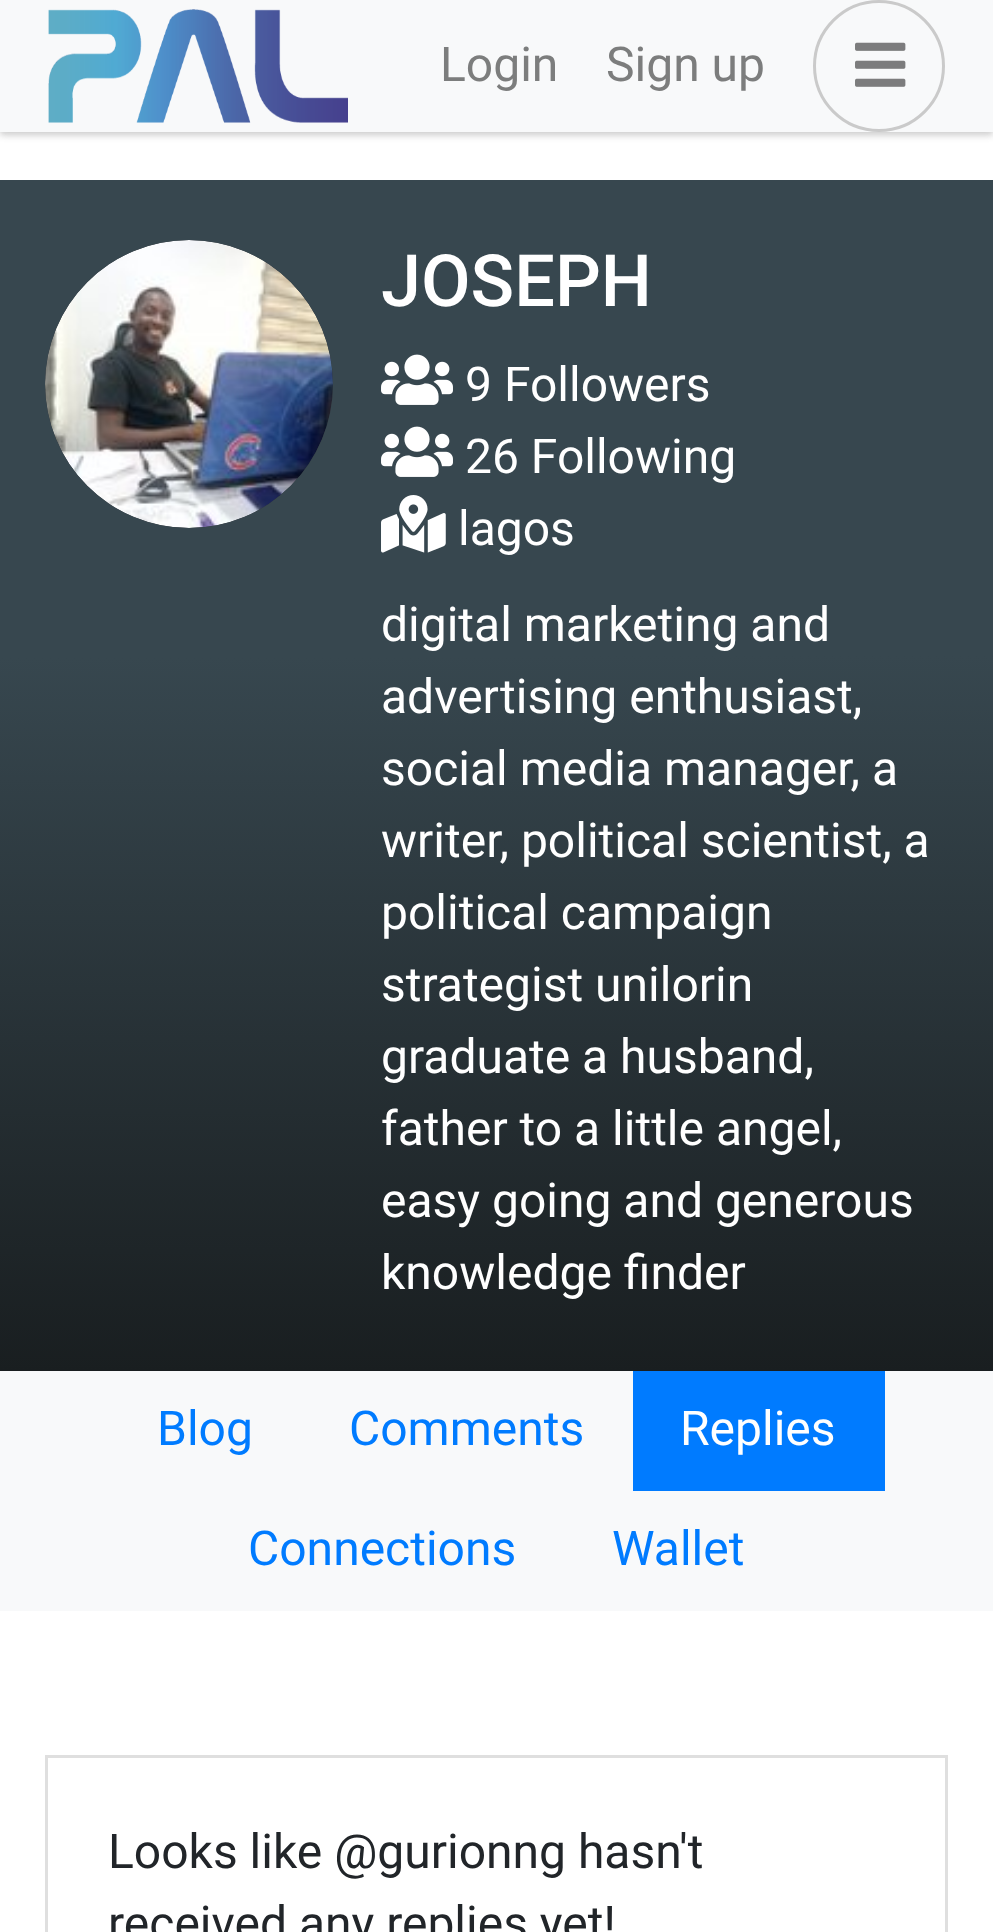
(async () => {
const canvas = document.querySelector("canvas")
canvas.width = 993
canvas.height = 1932
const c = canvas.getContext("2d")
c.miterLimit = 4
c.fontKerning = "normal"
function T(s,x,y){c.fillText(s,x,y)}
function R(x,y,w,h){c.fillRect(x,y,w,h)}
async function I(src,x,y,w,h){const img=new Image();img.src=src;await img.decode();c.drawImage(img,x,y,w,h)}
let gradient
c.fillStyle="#fff"
R(0,0,993,1932)
c.fillStyle="#00000024"
c.filter="blur(3px)"
c.beginPath()
c.rect(0,3,993,132)
c.fill()
c.filter="none"
c.fillStyle="#00000012"
c.filter="blur(4.5px)"
c.beginPath()
c.rect(0,3,993,132)
c.fill()
c.filter="none"
c.fillStyle="#f8f9fa"
R(0,0,993,132)
await I("1.png",48,9,300,114)
c.font="48px Roboto"
c.fillStyle="#7c7d7d"
T("Login",440,81)
T("Sign up",606,81)
c.beginPath()
c.arc(879,66,64.5,0,7)
c.strokeStyle="#cacaca"
c.lineWidth=3
c.stroke()
await I("2.png",855,42,51,45)
gradient = c.createLinearGradient(496,180,497,1371)
gradient.addColorStop(0,"#37474f")
gradient.addColorStop(.4,"#37474f")
gradient.addColorStop(1,"#191e20")
c.fillStyle = gradient
R(0,180,993,1191)
c.fillStyle="#343a40"
c.beginPath()
c.arc(189,384,144,0,7)
c.fill()
await I("3.png",45,240,288,288)
c.font="500 72px Roboto"
c.fillStyle="#fff"
T("JOSEPH",381,306)
await I("4.png",381,354,72,51)
c.font="48px Roboto"
T("9 Followers",465,401)
await I("4.png",381,426,72,51)
T("26 Following",465,473)
await I("5.png",381,495,65,58)
T("lagos",458,545)
T("digital marketing and",381,641)
T("advertising enthusiast,",381,713)
T("social media manager, a",381,785)
T("writer, political scientist, a",381,857)
T("political campaign",381,929)
T("strategist unilorin",381,1001)
T("graduate a husband,",381,1073)
T("father to a little angel,",381,1145)
T("easy going and generous",381,1217)
T("knowledge finder",381,1289)
c.fillStyle="#f8f9fa"
R(0,1371,993,240)
c.fillStyle="#007bff"
T("Blog",157,1445)
T("Comments",349,1445)
R(633,1371,252,120)
c.fillStyle="#fff"
T("Replies",680,1445)
c.fillStyle="#007bff"
T("Connections",248,1565)
T("Wallet",612,1565)
c.strokeStyle="#dfdfdf"
c.strokeRect(46.5,1756.5,900,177)
c.fillStyle="#212529"
T("Looks like @gurionng hasn't",108,1868)
T("received any replies yet!",108,1940)
})()
